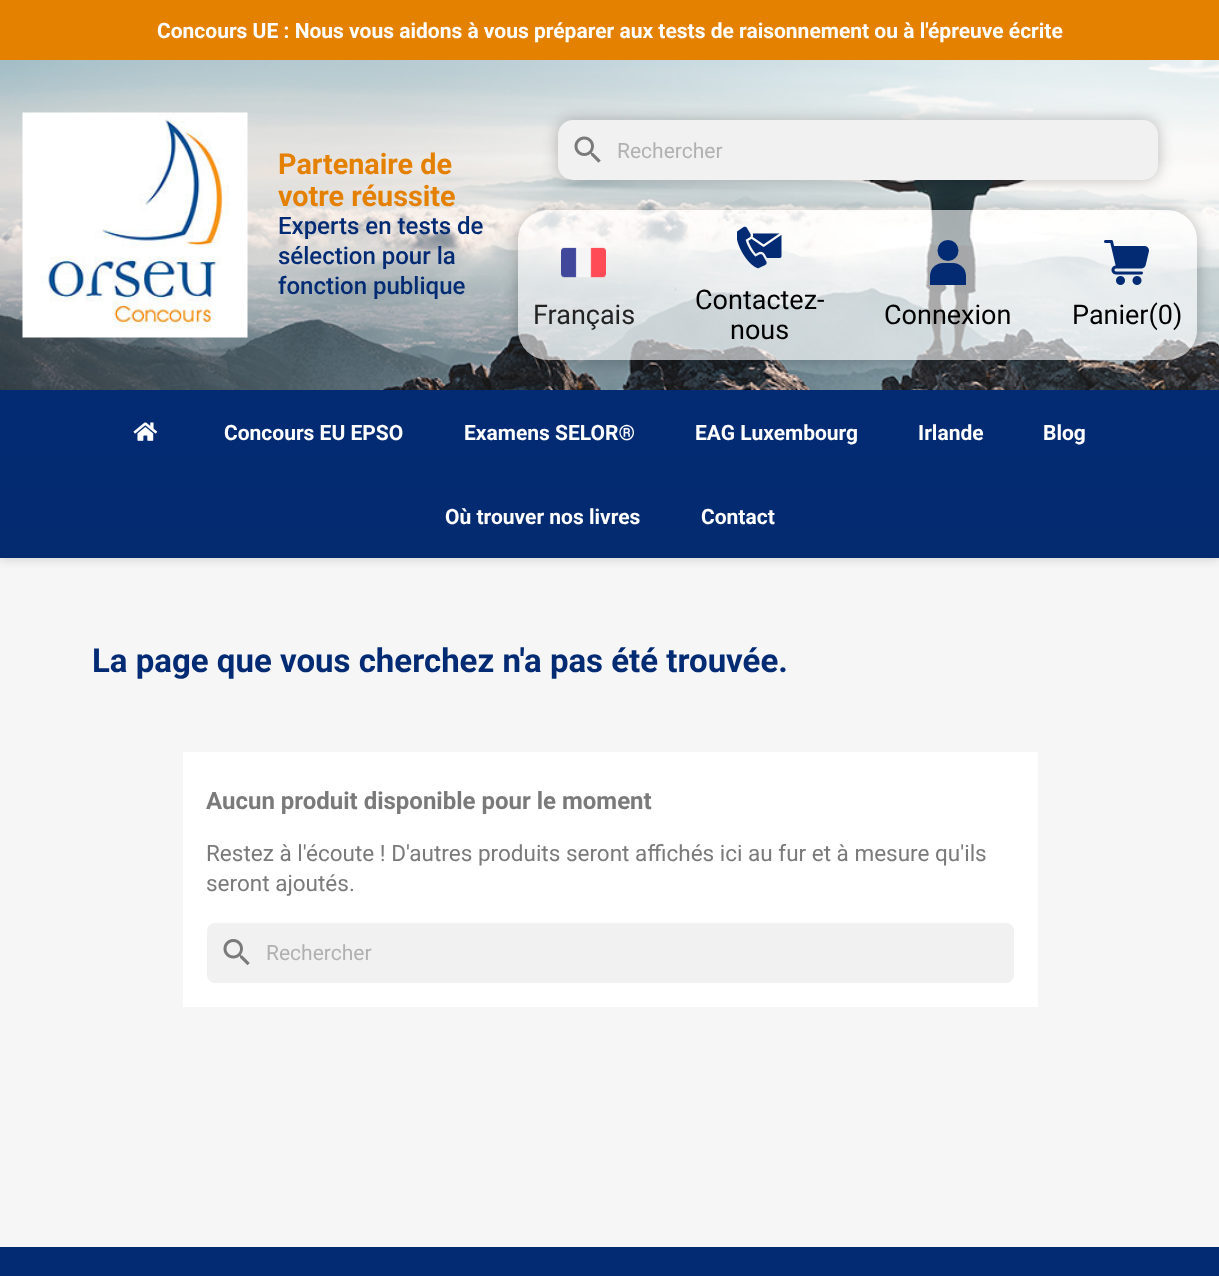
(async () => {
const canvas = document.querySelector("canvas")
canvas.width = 1219
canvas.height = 1276
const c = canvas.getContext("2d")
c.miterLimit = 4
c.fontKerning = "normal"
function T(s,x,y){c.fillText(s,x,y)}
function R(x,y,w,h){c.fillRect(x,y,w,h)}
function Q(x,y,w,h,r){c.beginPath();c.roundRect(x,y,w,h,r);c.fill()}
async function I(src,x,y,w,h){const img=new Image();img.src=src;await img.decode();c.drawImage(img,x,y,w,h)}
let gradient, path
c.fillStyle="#f6f6f6"
R(0,0,1219,1276)
c.fillStyle="#0000001c"
c.filter="blur(4px)"
c.beginPath()
c.rect(0,3,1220,558)
c.fill()
c.filter="none"
c.fillStyle="#e48100"
R(0,0,1219,60)
c.font="bold 21px Roboto"
c.fillStyle="#fff"
T("Concours UE : Nous vous aidons à vous préparer aux tests de raisonnement ou à l'épreuve écrite",157,38)
await I("1.png",0,60,1219,330)
await I("2.png",22,112,226,226)
c.font="bold 28.75px Roboto"
c.fillStyle="#e48100"
T("Partenaire de",278,174)
T("votre réussite",278,206)
c.font="500 24px Roboto"
c.fillStyle="#022b74"
T("Experts en tests de",278,234)
T("sélection pour la",278,264)
T("fonction publique",278,294)
c.fillStyle="#00000040"
c.filter="blur(7.5px)"
c.beginPath()
c.roundRect(558,120,600,60,15)
c.fill()
c.filter="none"
c.fillStyle="#f1f1f1"
Q(558,120,600,60,15)
await I("3.png",574,136,27,27)
c.font="21px Roboto"
c.fillStyle="#b1b1b1"
T("Rechercher",617,158)
c.save()
path = new Path2D("M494 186h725v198h-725zm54 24h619c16.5 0 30 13.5 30 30v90c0 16.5-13.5 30-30 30h-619c-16.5 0-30-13.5-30-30v-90c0-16.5 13.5-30 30-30z")
c.clip(path,"evenodd")
c.fillStyle="#00000040"
c.filter="blur(7.5px)"
c.beginPath()
c.roundRect(518,210,679,150,30)
c.fill()
c.filter="none"
c.restore()
c.fillStyle="#ffffff99"
Q(518,210,679,150,30)
await I("4.png",561,247,45,31)
c.font="27px Roboto"
c.fillStyle="#232323"
T("Français",533,324)
await I("5.png",737,226,45,43)
c.fillStyle="#000"
T("Contactez-",695,309)
T("nous",730,339)
c.fillStyle="#022b74"
path = new Path2D("M930 276v9h36v-9c0-7.5-6-13-13-13h-10c-7 0-13 5.5-13 13z")
c.fill(path)
c.beginPath()
c.arc(948,250.5,10.5,0,7)
c.fill()
c.fillStyle="#000"
T("Connexion",884,324)
await I("6.png",1104,240,45,45)
T("Panier(0)",1072,324)
gradient = c.createLinearGradient(610,390,610,558)
gradient.addColorStop(0,"#022b74")
gradient.addColorStop(1,"#042b70")
c.fillStyle = gradient
R(0,390,1219,168)
await I("7.png",133,422,25,19)
c.font="bold 21px Roboto"
c.fillStyle="#fff"
T("Concours EU EPSO",224,440)
T("Examens SELOR®",464,440)
T("EAG Luxembourg",695,440)
T("Irlande",918,440)
T("Blog",1043,440)
T("Où trouver nos livres",445,524)
T("Contact",701,524)
c.font="bold 33px Roboto"
c.fillStyle="#022b74"
T("La page que vous cherchez n'a pas été trouvée.",92,672)
c.fillStyle="#fff"
R(183,752,855,255)
c.font="bold 24px Roboto"
c.fillStyle="#7a7a7a"
T("Aucun produit disponible pour le moment",206,809)
c.font="22.5px Roboto"
T("Restez à l'écoute ! D'autres produits seront affichés ici au fur et à mesure qu'ils",206,861)
T("seront ajoutés.",206,891)
c.fillStyle="#f1f1f1"
Q(207,923,807,60,8)
await I("8.png",223,939,27,27)
c.font="21px Roboto"
c.fillStyle="#b1b1b1"
T("Rechercher",266,960)
c.fillStyle="#022b74"
R(0,1247,1219,29)
})()
